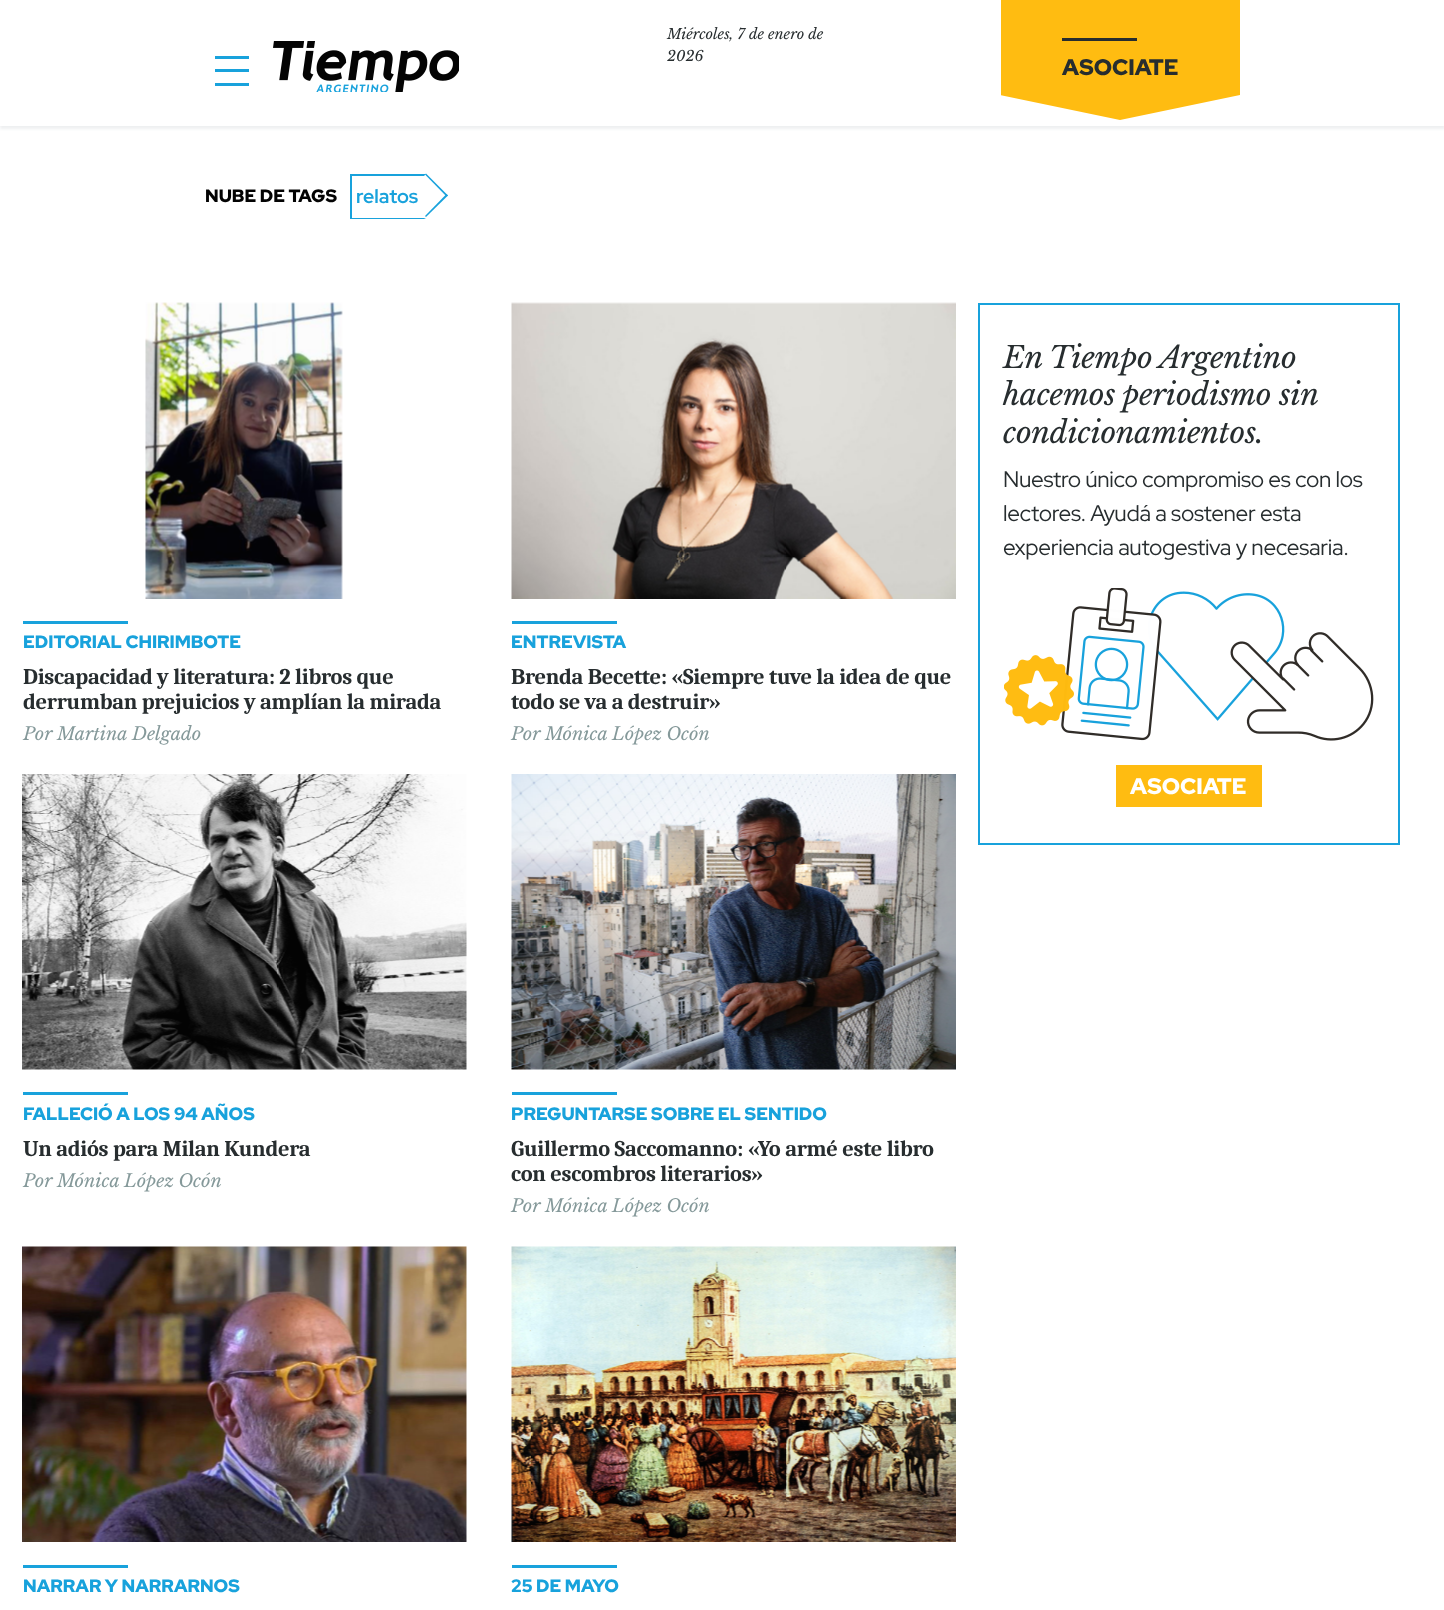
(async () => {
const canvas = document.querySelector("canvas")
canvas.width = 1444
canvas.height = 1610
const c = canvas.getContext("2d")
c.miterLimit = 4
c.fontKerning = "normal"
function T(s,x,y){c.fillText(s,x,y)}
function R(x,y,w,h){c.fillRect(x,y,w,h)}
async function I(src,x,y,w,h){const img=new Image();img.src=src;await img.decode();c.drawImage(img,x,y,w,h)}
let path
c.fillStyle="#fff"
R(0,0,1444,1610)
c.save()
c.beginPath()
c.rect(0,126,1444,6)
c.clip()
c.fillStyle="#eef0f1"
c.filter="blur(1.5px)"
c.beginPath()
c.rect(0,3,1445,126)
c.fill()
c.filter="none"
c.restore()
c.fillStyle="#18a2dc"
R(215,56,34,3)
R(215,69,34,3)
R(215,83,34,3)
await I("1.png",273,41,186,51)
c.font="italic 14.4px Libre Baskerville"
c.fillStyle="#272d2f"
T("Miércoles, 7 de enero de",667,39)
T("2026",667,61)
c.save()
c.beginPath()
c.rect(1001,0,240,120)
c.clip()
c.fillStyle="#ffbc11"
path = new Path2D("M1000 95v-95h240v95l-120 25z")
c.fill(path)
c.restore()
R(1062,38,75,3)
c.font="900 22.5px Red Hat Display"
T("ASOCIATE",1062,75)
c.font="900 18px Red Hat Display"
c.fillStyle="#030303"
T("NUBE DE TAGS",205,202)
c.fillStyle="#18a2dc"
path = new Path2D("M426 173.5l22 22l-1.5 1l-21.5-22z")
c.fill(path)
path = new Path2D("M350 174h76l-2 2h-73z")
c.fill(path)
path = new Path2D("M426 219h-76l1-1h73z")
c.fill(path)
R(350,174,2,45)
c.font="bold 19.5px Red Hat Display"
T("relatos",356,203)
path = new Path2D("M446.5 194l1.5 1.5l-22 21.5l-1-1z")
c.fill(path)
c.strokeStyle="#18a2dc"
c.lineWidth=2
c.strokeRect(979,304,420,540)
c.letterSpacing="-0.3px"
c.font="italic 30px Libre Baskerville"
c.fillStyle="#272d2f"
T("En Tiempo Argentino",1003,368)
T("hacemos periodismo sin",1003,405)
T("condicionamientos.",1003,443)
c.font="22.5px Red Hat Display"
T("Nuestro único compromiso es con los",1003,487)
T("lectores. Ayudá a sostener esta",1003,521)
T("experiencia autogestiva y necesaria.",1003,555)
await I("2.png",1004,588,370,153)
c.fillStyle="#ffbc11"
R(1116,765,146,42)
c.letterSpacing="0px"
c.font="900 22.5px Red Hat Display"
c.fillStyle="#fff"
T("ASOCIATE",1130,794)
await I("3.png",145,302,198,297)
c.fillStyle="#18a2dc"
R(23,621,105,3)
c.font="900 18px Red Hat Display"
T("EDITORIAL CHIRIMBOTE",23,648)
c.letterSpacing="-0.3px"
c.font="bold 22.5px Caladea"
c.fillStyle="#272d2f"
T("Discapacidad y literatura: 2 libros que",23,684)
T("derrumban prejuicios y amplían la mirada",23,709)
c.letterSpacing="0px"
c.font="italic 18px Libre Baskerville"
c.fillStyle="#85999a"
T("Por Martina Delgado",23,740)
await I("4.png",511,302,445,297)
c.fillStyle="#18a2dc"
R(512,621,105,3)
c.font="900 18px Red Hat Display"
T("ENTREVISTA",511,648)
c.letterSpacing="-0.3px"
c.font="bold 22.5px Caladea"
c.fillStyle="#272d2f"
T("Brenda Becette: «Siempre tuve la idea de que",511,684)
T("todo se va a destruir»",511,709)
c.letterSpacing="0px"
c.font="italic 18px Libre Baskerville"
c.fillStyle="#85999a"
T("Por Mónica López Ocón",511,740)
await I("5.png",22,774,445,296)
c.fillStyle="#18a2dc"
R(23,1092,105,3)
c.font="900 18px Red Hat Display"
T("FALLECIÓ A LOS 94 AÑOS",23,1120)
c.letterSpacing="-0.3px"
c.font="bold 22.5px Caladea"
c.fillStyle="#272d2f"
T("Un adiós para Milan Kundera",23,1156)
c.letterSpacing="0px"
c.font="italic 18px Libre Baskerville"
c.fillStyle="#85999a"
T("Por Mónica López Ocón",23,1187)
await I("6.png",511,774,445,296)
c.fillStyle="#18a2dc"
R(512,1092,105,3)
c.font="900 18px Red Hat Display"
T("PREGUNTARSE SOBRE EL SENTIDO",511,1120)
c.letterSpacing="-0.3px"
c.font="bold 22.5px Caladea"
c.fillStyle="#272d2f"
T("Guillermo Saccomanno: «Yo armé este libro",511,1156)
T("con escombros literarios»",511,1181)
c.letterSpacing="0px"
c.font="italic 18px Libre Baskerville"
c.fillStyle="#85999a"
T("Por Mónica López Ocón",511,1212)
await I("7.png",22,1246,445,296)
c.fillStyle="#18a2dc"
R(23,1565,105,3)
c.font="900 18px Red Hat Display"
T("NARRAR Y NARRARNOS",23,1592)
await I("8.png",511,1246,445,296)
R(512,1565,105,3)
T("25 DE MAYO",511,1592)
})()
